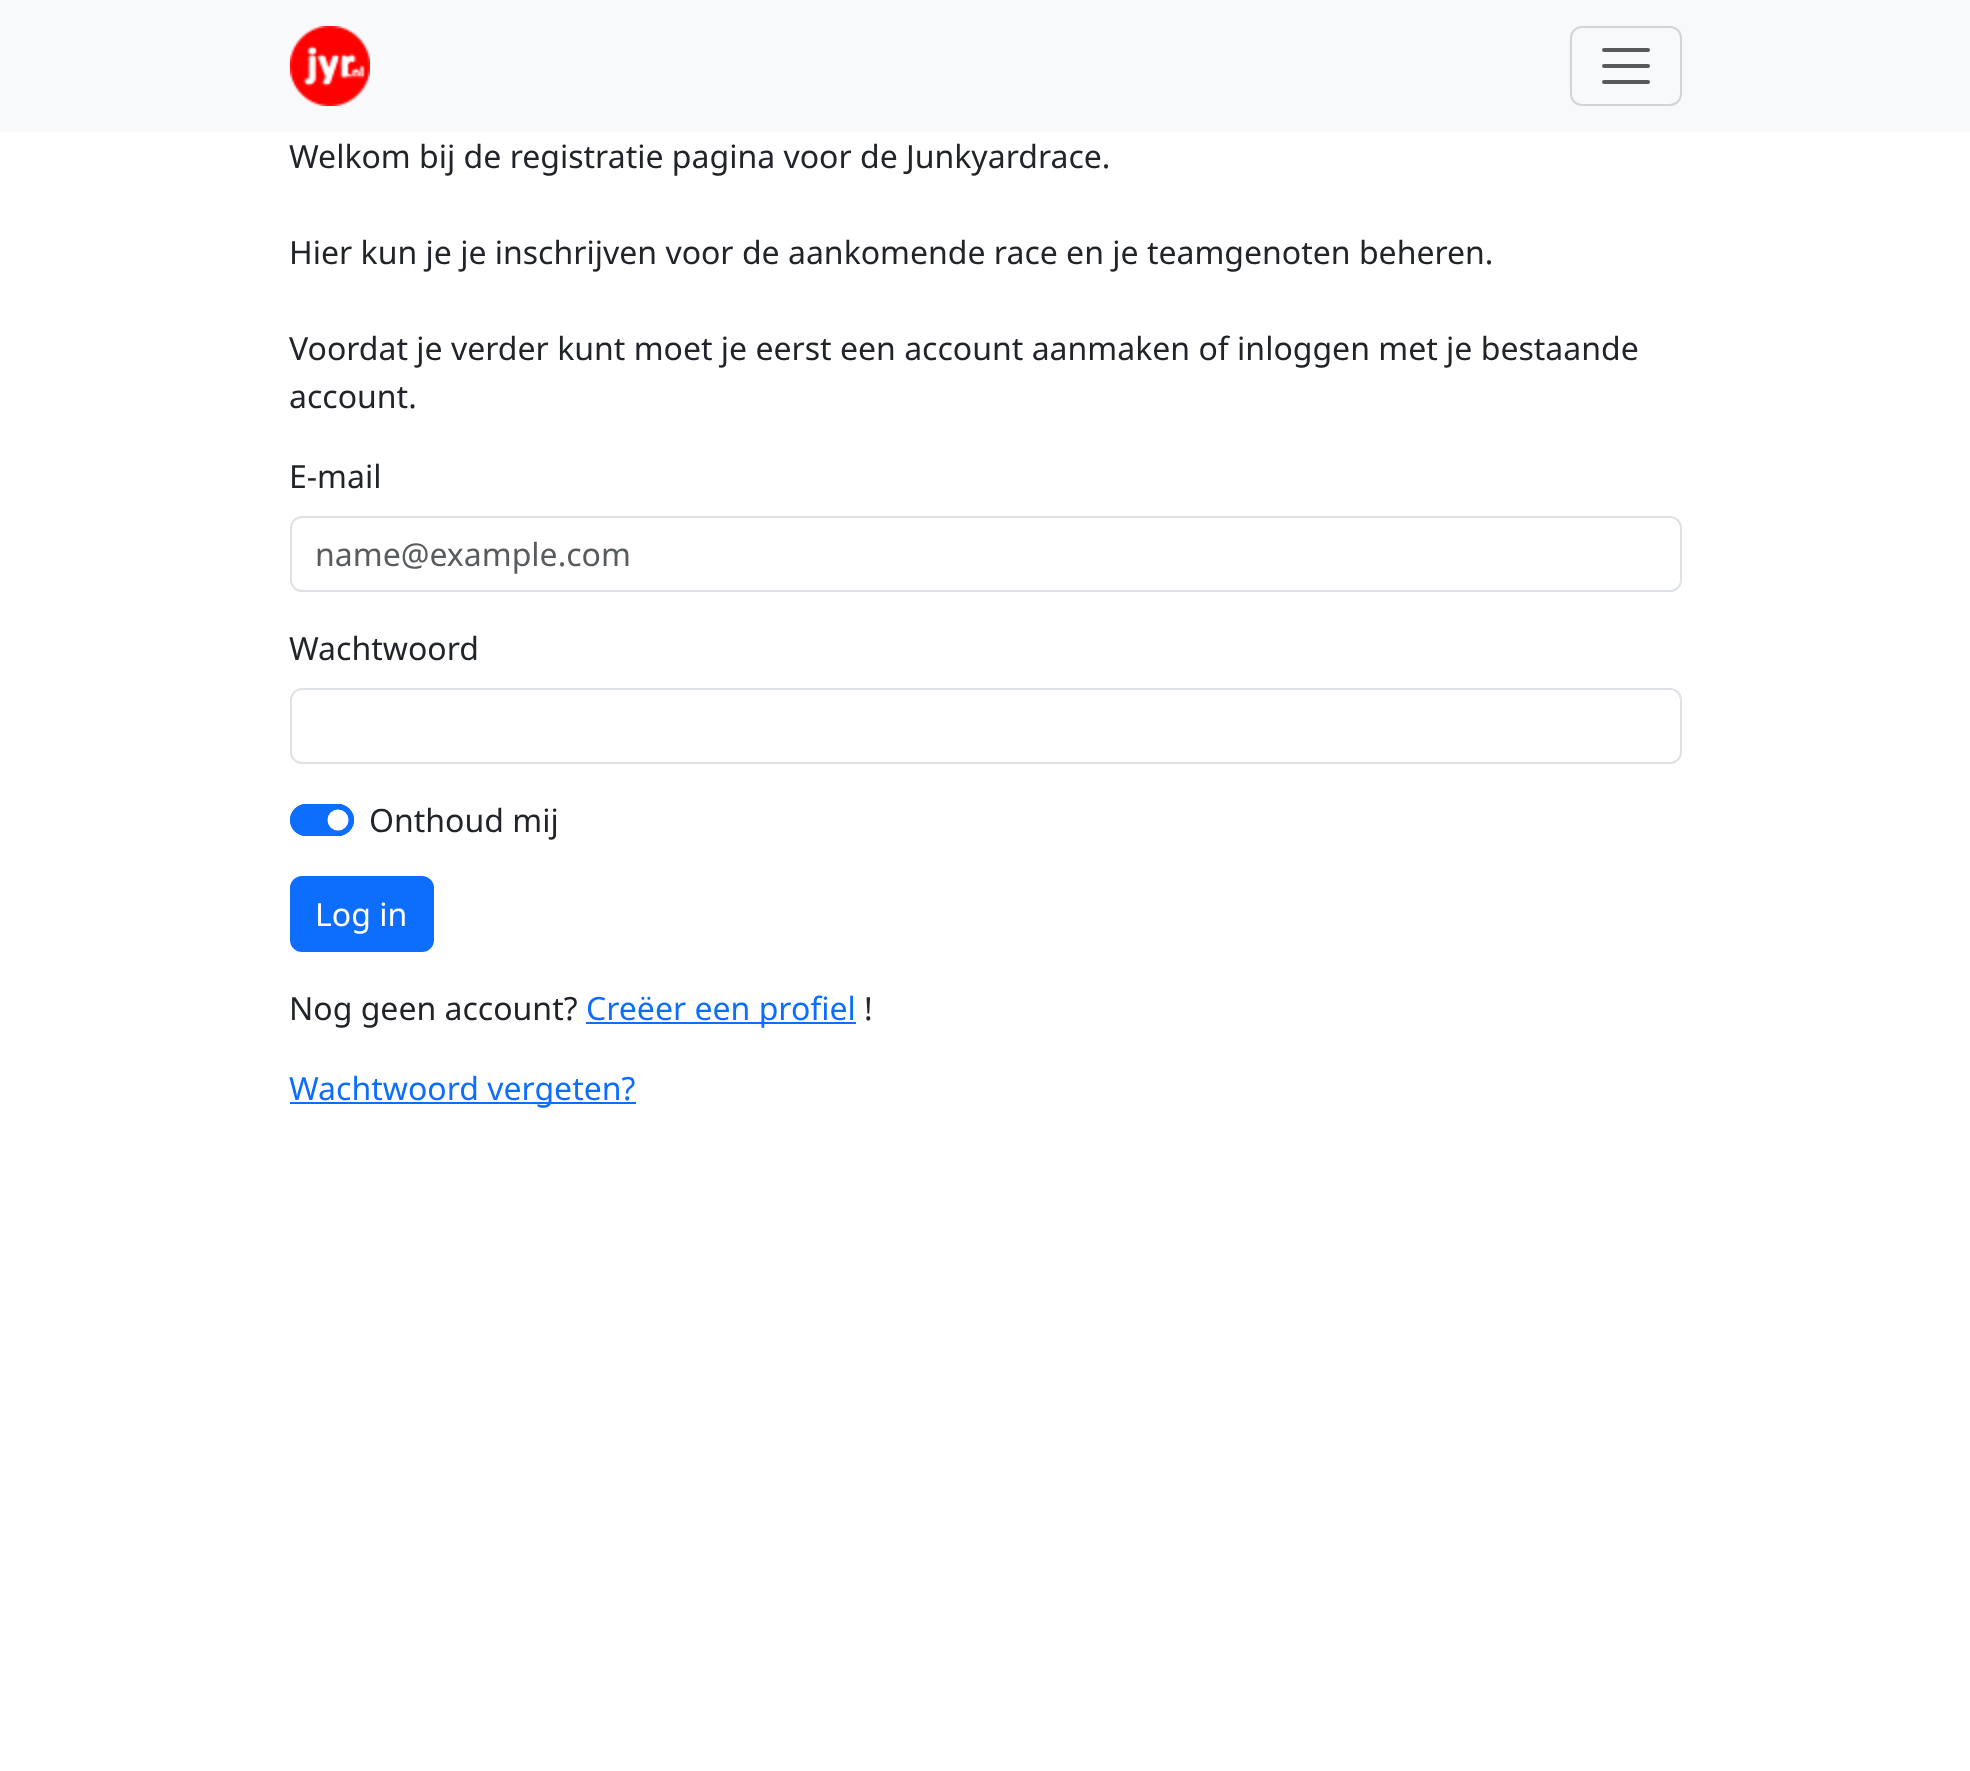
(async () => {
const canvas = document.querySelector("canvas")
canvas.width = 1970
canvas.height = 1771
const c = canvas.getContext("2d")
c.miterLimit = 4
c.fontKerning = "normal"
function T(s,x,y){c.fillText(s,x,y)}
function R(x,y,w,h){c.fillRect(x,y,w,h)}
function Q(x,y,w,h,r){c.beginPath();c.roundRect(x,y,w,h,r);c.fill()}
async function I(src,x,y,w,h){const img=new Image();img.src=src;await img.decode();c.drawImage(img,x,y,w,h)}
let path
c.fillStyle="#fff"
R(0,0,1970,1771)
c.fillStyle="#f8f9fa"
R(0,0,1970,132)
await I("1.png",290,26,80,80)
c.beginPath()
c.roundRect(1571,27,110,78,11)
c.strokeStyle="#d3d4d5"
c.lineWidth=2
c.stroke()
path = new Path2D("M1604 50h44m-44 16h44m-44 16h44")
c.strokeStyle="#575a5d"
c.lineWidth=4
c.lineCap="round"
c.stroke(path)
c.font="32px Noto Sans"
c.fillStyle="#212529"
T("Welkom bij de registratie pagina voor de Junkyardrace.",289,168)
T("Hier kun je je inschrijven voor de aankomende race en je teamgenoten beheren.",289,264)
T("Voordat je verder kunt moet je eerst een account aanmaken of inloggen met je bestaande",289,360)
T("account.",289,408)
T("E-mail",289,488)
c.beginPath()
c.roundRect(291,517,1390,74,11)
c.strokeStyle="#dee2e6"
c.lineWidth=2
c.stroke()
c.fillStyle="#595c5f"
T("name@example.com",315,566)
c.fillStyle="#212529"
T("Wachtwoord",289,660)
c.beginPath()
c.roundRect(291,689,1390,74,11)
c.stroke()
c.fillStyle="#0d6efd"
Q(290,804,64,32,16)
c.fillStyle="#fff"
c.beginPath()
c.arc(338,820,10.5,0,7)
c.fill()
c.beginPath()
c.roundRect(291,805,62,30,15)
c.strokeStyle="#0d6efd"
c.stroke()
c.fillStyle="#212529"
T("Onthoud mij",369,832)
c.fillStyle="#0d6efd"
c.beginPath()
c.roundRect(291,877,142,74,11)
c.fill()
c.stroke()
c.fillStyle="#fff"
T("Log in",315,926)
c.fillStyle="#212529"
T("Nog geen account?",289,1020)
c.fillStyle="#0d6efd"
R(586,1022,270,2)
T("Creëer een profiel",586,1020)
c.fillStyle="#212529"
T("!",864,1020)
c.fillStyle="#0d6efd"
R(290,1102,346,2)
T("Wachtwoord vergeten?",289,1100)
})()
